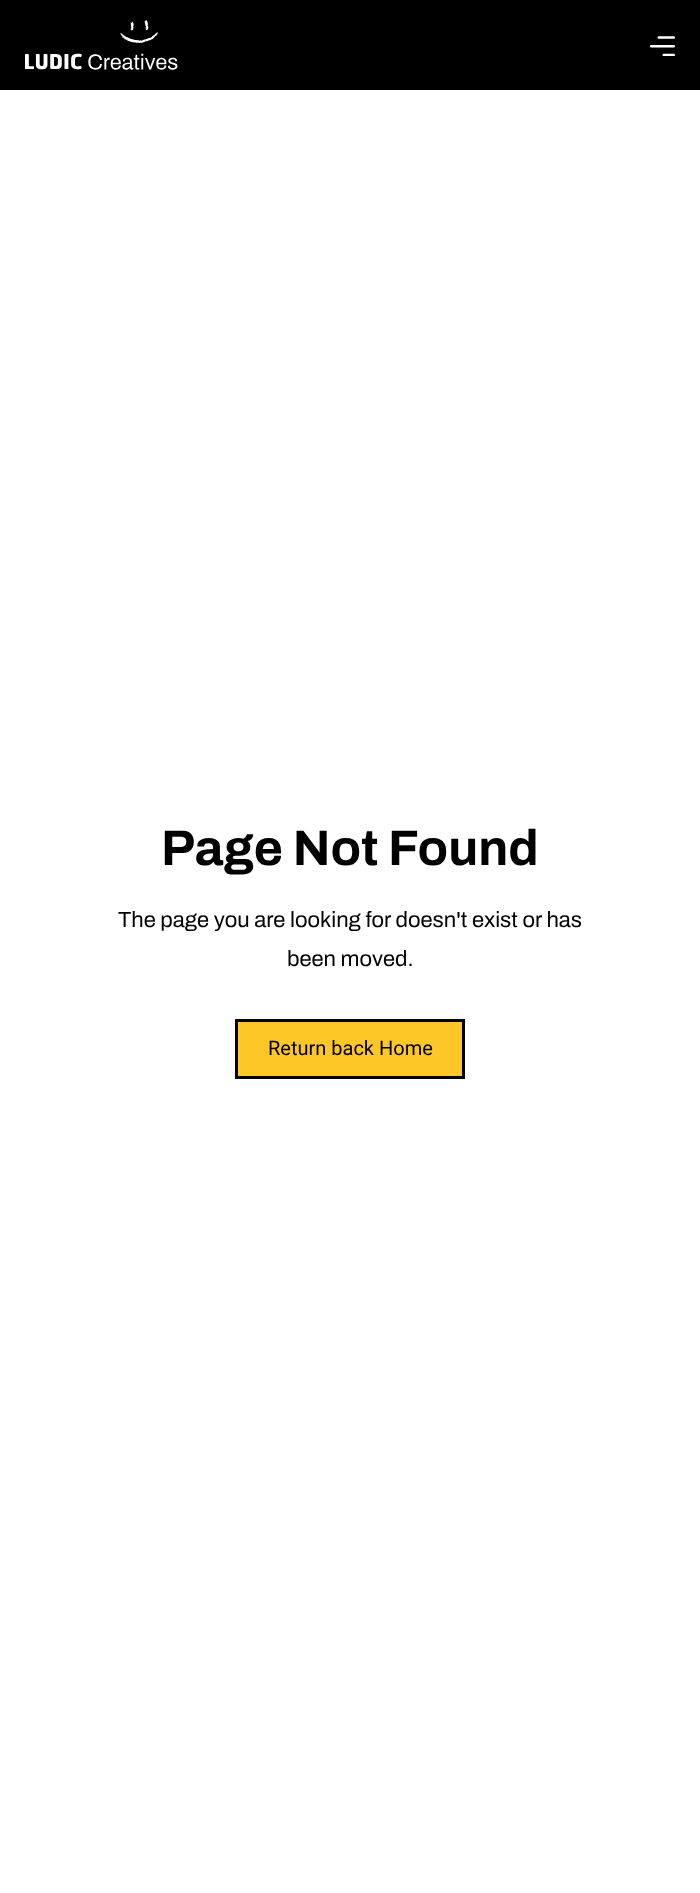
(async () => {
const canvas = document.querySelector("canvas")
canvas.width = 700
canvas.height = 1893
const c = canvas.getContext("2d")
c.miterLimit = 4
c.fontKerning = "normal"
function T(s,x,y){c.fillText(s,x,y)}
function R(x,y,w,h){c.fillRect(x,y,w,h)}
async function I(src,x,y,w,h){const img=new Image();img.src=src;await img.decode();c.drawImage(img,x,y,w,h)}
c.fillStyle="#fff"
R(0,0,700,1893)
c.fillStyle="#000"
R(0,0,700,90)
await I("1.png",25,20,153,50)
await I("2.png",650,36,25,20)
c.font="bold 50px Archivo"
T("Page Not Found",161,865)
c.font="22px Archivo"
T("The page you are looking for doesn't exist or has",118,927)
T("been moved.",287,966)
c.fillStyle="#fdc727"
c.beginPath()
c.rect(236.5,1020.5,227,57)
c.fill()
c.strokeStyle="#000"
c.lineWidth=3
c.stroke()
c.font="20px Roboto"
c.fillStyle="#000"
T("Return back Home",268,1055)
})()
